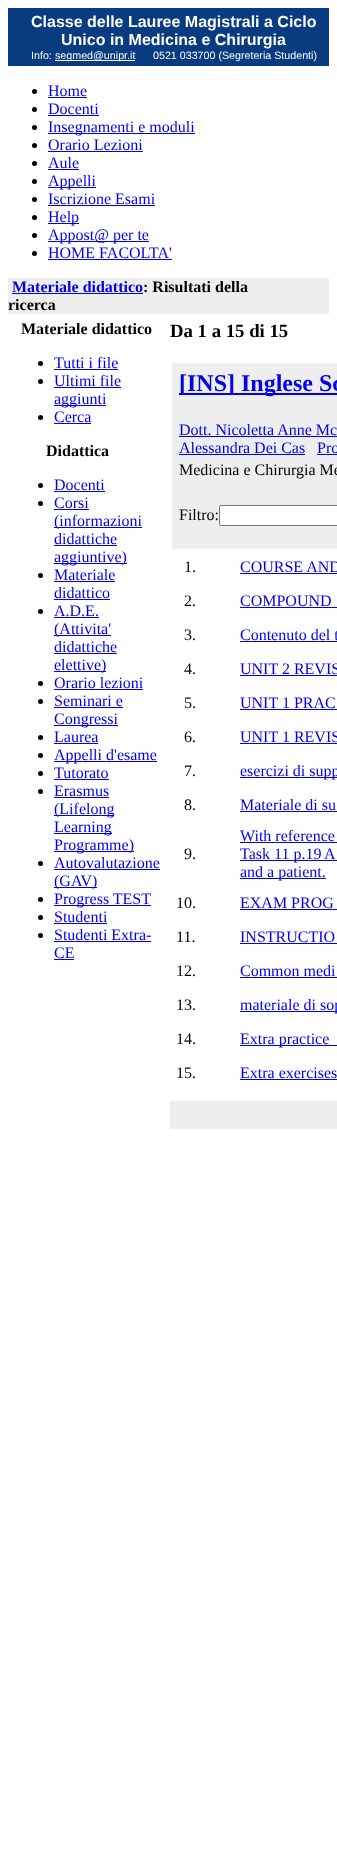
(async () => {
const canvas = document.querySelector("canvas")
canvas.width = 337
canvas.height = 1867
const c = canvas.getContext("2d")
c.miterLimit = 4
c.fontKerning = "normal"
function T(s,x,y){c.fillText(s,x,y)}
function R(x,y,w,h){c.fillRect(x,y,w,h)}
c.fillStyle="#fff"
R(0,0,337,1867)
c.fillStyle="#093b81"
R(8,8,321,58)
c.font="bold 16px Liberation Sans"
c.fillStyle="#fff"
T("Classe delle Lauree Magistrali a Ciclo",31,27)
T("Unico in Medicina e Chirurgia",61,45)
c.font="10.7px Liberation Sans"
T("Info:",31,59)
R(55,60,80,1)
T("segmed@unipr.it",55,59)
T("0521 033700 (Segreteria Studenti)",153,59)
c.fillStyle="#000"
c.beginPath()
c.arc(34.5,91.5,2.5,0,7)
c.fill()
c.font="16px Liberation Serif"
c.fillStyle="#00e"
T("Home",48,96)
R(48,97,39,1)
c.fillStyle="#000"
c.beginPath()
c.arc(34.5,109.5,2.5,0,7)
c.fill()
c.fillStyle="#00e"
T("Docenti",48,114)
R(48,115,51,1)
c.fillStyle="#000"
c.beginPath()
c.arc(34.5,127.5,2.5,0,7)
c.fill()
c.fillStyle="#00e"
R(48,133,147,1)
T("Insegnamenti e moduli",48,132)
c.fillStyle="#000"
c.beginPath()
c.arc(34.5,145.5,2.5,0,7)
c.fill()
c.fillStyle="#00e"
T("Orario Lezioni",48,150)
R(48,151,95,1)
c.fillStyle="#000"
c.beginPath()
c.arc(34.5,163.5,2.5,0,7)
c.fill()
c.fillStyle="#00e"
T("Aule",48,168)
R(48,169,31,1)
c.fillStyle="#000"
c.beginPath()
c.arc(34.5,181.5,2.5,0,7)
c.fill()
c.fillStyle="#00e"
R(48,187,48,1)
T("Appelli",48,186)
c.fillStyle="#000"
c.beginPath()
c.arc(34.5,199.5,2.5,0,7)
c.fill()
c.fillStyle="#00e"
T("Iscrizione Esami",48,204)
R(48,205,107,1)
c.fillStyle="#000"
c.beginPath()
c.arc(34.5,217.5,2.5,0,7)
c.fill()
c.fillStyle="#00e"
R(48,223,31,1)
T("Help",48,222)
c.fillStyle="#000"
c.beginPath()
c.arc(34.5,235.5,2.5,0,7)
c.fill()
c.fillStyle="#00e"
R(48,241,101,1)
T("Appost@ per te",48,240)
c.fillStyle="#000"
c.beginPath()
c.arc(34.5,253.5,2.5,0,7)
c.fill()
c.fillStyle="#00e"
T("HOME FACOLTA'",48,258)
R(48,259,124,1)
c.fillStyle="#eee"
R(8,278,321,36)
c.font="bold 16px Liberation Serif"
c.fillStyle="#00e"
T("Materiale didattico",12,292)
R(12,293,131,1)
c.fillStyle="#000"
T(": Risultati della",143,292)
T("ricerca",8,310)
T("Materiale didattico",21,334)
c.beginPath()
c.arc(40.5,363.5,2.5,0,7)
c.fill()
c.font="16px Liberation Serif"
c.fillStyle="#00e"
T("Tutti i file",54,368)
R(54,369,64,1)
c.fillStyle="#000"
c.beginPath()
c.arc(40.5,381.5,2.5,0,7)
c.fill()
c.fillStyle="#00e"
T("Ultimi file",54,386)
R(54,387,67,1)
R(54,405,52,1)
T("aggiunti",54,404)
c.fillStyle="#000"
c.beginPath()
c.arc(40.5,417.5,2.5,0,7)
c.fill()
c.fillStyle="#00e"
T("Cerca",54,422)
R(54,423,37,1)
c.font="bold 16px Liberation Serif"
c.fillStyle="#000"
T("Didattica",46,456)
c.beginPath()
c.arc(40.5,485.5,2.5,0,7)
c.fill()
c.font="16px Liberation Serif"
c.fillStyle="#00e"
T("Docenti",54,490)
R(54,491,51,1)
c.fillStyle="#000"
c.beginPath()
c.arc(40.5,503.5,2.5,0,7)
c.fill()
c.fillStyle="#00e"
T("Corsi",54,508)
R(54,509,35,1)
R(54,527,88,1)
T("(informazioni",54,526)
T("didattiche",54,544)
R(54,545,63,1)
R(54,563,73,1)
T("aggiuntive)",54,562)
c.fillStyle="#000"
c.beginPath()
c.arc(40.5,575.5,2.5,0,7)
c.fill()
c.fillStyle="#00e"
T("Materiale",54,580)
R(54,581,61,1)
T("didattico",54,598)
R(54,599,56,1)
c.fillStyle="#000"
c.beginPath()
c.arc(40.5,611.5,2.5,0,7)
c.fill()
c.fillStyle="#00e"
T("A.D.E.",54,616)
R(54,617,45,1)
R(54,635,57,1)
T("(Attivita'",54,634)
T("didattiche",54,652)
R(54,653,63,1)
R(54,671,52,1)
T("elettive)",54,670)
c.fillStyle="#000"
c.beginPath()
c.arc(40.5,683.5,2.5,0,7)
c.fill()
c.fillStyle="#00e"
T("Orario lezioni",54,688)
R(54,689,89,1)
c.fillStyle="#000"
c.beginPath()
c.arc(40.5,701.5,2.5,0,7)
c.fill()
c.fillStyle="#00e"
T("Seminari e",54,706)
R(54,707,69,1)
R(54,725,64,1)
T("Congressi",54,724)
c.fillStyle="#000"
c.beginPath()
c.arc(40.5,737.5,2.5,0,7)
c.fill()
c.fillStyle="#00e"
T("Laurea",54,742)
R(54,743,44,1)
c.fillStyle="#000"
c.beginPath()
c.arc(40.5,755.5,2.5,0,7)
c.fill()
c.fillStyle="#00e"
R(54,761,103,1)
T("Appelli d'esame",54,760)
c.fillStyle="#000"
c.beginPath()
c.arc(40.5,773.5,2.5,0,7)
c.fill()
c.fillStyle="#00e"
T("Tutorato",54,778)
R(54,779,55,1)
c.fillStyle="#000"
c.beginPath()
c.arc(40.5,791.5,2.5,0,7)
c.fill()
c.fillStyle="#00e"
T("Erasmus",54,796)
R(54,797,55,1)
R(54,815,60,1)
T("(Lifelong",54,814)
R(54,833,58,1)
T("Learning",54,832)
R(54,851,80,1)
T("Programme)",54,850)
c.fillStyle="#000"
c.beginPath()
c.arc(40.5,863.5,2.5,0,7)
c.fill()
c.fillStyle="#00e"
T("Autovalutazione",54,868)
R(54,869,106,1)
R(54,887,43,1)
T("(GAV)",54,886)
c.fillStyle="#000"
c.beginPath()
c.arc(40.5,899.5,2.5,0,7)
c.fill()
c.fillStyle="#00e"
R(54,905,97,1)
T("Progress TEST",54,904)
c.fillStyle="#000"
c.beginPath()
c.arc(40.5,917.5,2.5,0,7)
c.fill()
c.fillStyle="#00e"
T("Studenti",54,922)
R(54,923,53,1)
c.fillStyle="#000"
c.beginPath()
c.arc(40.5,935.5,2.5,0,7)
c.fill()
c.fillStyle="#00e"
T("Studenti Extra-",54,940)
R(54,941,97,1)
T("CE",54,958)
R(54,959,20,1)
c.font="bold 18.75px Liberation Serif"
c.fillStyle="#000"
T("Da 1 a 15 di 15",170,337)
c.fillStyle="#eee"
R(172,363,165,186)
c.fillStyle="#00e"
R(179,393,158,2)
c.font="bold 24px Liberation Serif"
T("[INS] Inglese Sc",179,391)
c.font="16px Liberation Serif"
T("Dott. Nicoletta Anne Mc",179,435)
R(179,436,158,1)
T("Alessandra Dei Cas",179,453)
R(179,454,126,1)
T("Pro",317,453)
R(317,454,20,1)
c.fillStyle="#000"
T("Medicina e Chirurgia Me",179,475)
T("Filtro:",179,520)
c.fillStyle="#fff"
c.beginPath()
c.roundRect(219.5,505.5,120,20,1.5)
c.fill()
c.strokeStyle="#767676"
c.stroke()
c.fillStyle="#000"
T("1.",184,572)
c.fillStyle="#00e"
T("COURSE AND",240,572)
R(240,573,97,1)
c.fillStyle="#000"
T("2.",184,606)
c.fillStyle="#00e"
T("COMPOUND",240,606)
R(240,607,97,1)
c.fillStyle="#000"
T("3.",184,640)
c.fillStyle="#00e"
T("Contenuto del t",240,640)
R(240,641,97,1)
c.fillStyle="#000"
T("4.",184,674)
c.fillStyle="#00e"
T("UNIT 2 REVIS",240,674)
R(240,675,97,1)
c.fillStyle="#000"
T("5.",184,708)
c.fillStyle="#00e"
T("UNIT 1 PRAC",240,708)
R(240,709,97,1)
c.fillStyle="#000"
T("6.",184,742)
c.fillStyle="#00e"
T("UNIT 1 REVIS",240,742)
R(240,743,97,1)
c.fillStyle="#000"
T("7.",184,776)
c.fillStyle="#00e"
R(240,777,97,1)
T("esercizi di supp",240,776)
c.fillStyle="#000"
T("8.",184,810)
c.fillStyle="#00e"
T("Materiale di su",240,810)
R(240,811,97,1)
c.fillStyle="#000"
T("9.",184,859)
c.fillStyle="#00e"
T("With reference",240,841)
R(240,842,97,1)
R(240,860,97,1)
T("Task 11 p.19",240,859)
T("A",324,859)
R(240,878,86,1)
T("and a patient.",240,877)
c.fillStyle="#000"
T("10.",176,908)
c.fillStyle="#00e"
T("EXAM PROG",240,908)
R(240,909,97,1)
c.fillStyle="#000"
T("11.",176,942)
c.fillStyle="#00e"
T("INSTRUCTIO",240,942)
R(240,943,97,1)
c.fillStyle="#000"
T("12.",176,976)
c.fillStyle="#00e"
T("Common medi",240,976)
R(240,977,97,1)
c.fillStyle="#000"
T("13.",176,1010)
c.fillStyle="#00e"
R(240,1011,97,1)
T("materiale di sop",240,1010)
c.fillStyle="#000"
T("14.",176,1044)
c.fillStyle="#00e"
R(240,1045,97,1)
T("Extra practice",240,1044)
c.fillStyle="#000"
T("15.",176,1078)
c.fillStyle="#00e"
T("Extra exercises",240,1078)
R(240,1079,97,1)
c.fillStyle="#eee"
R(170,1101,167,28)
})()
